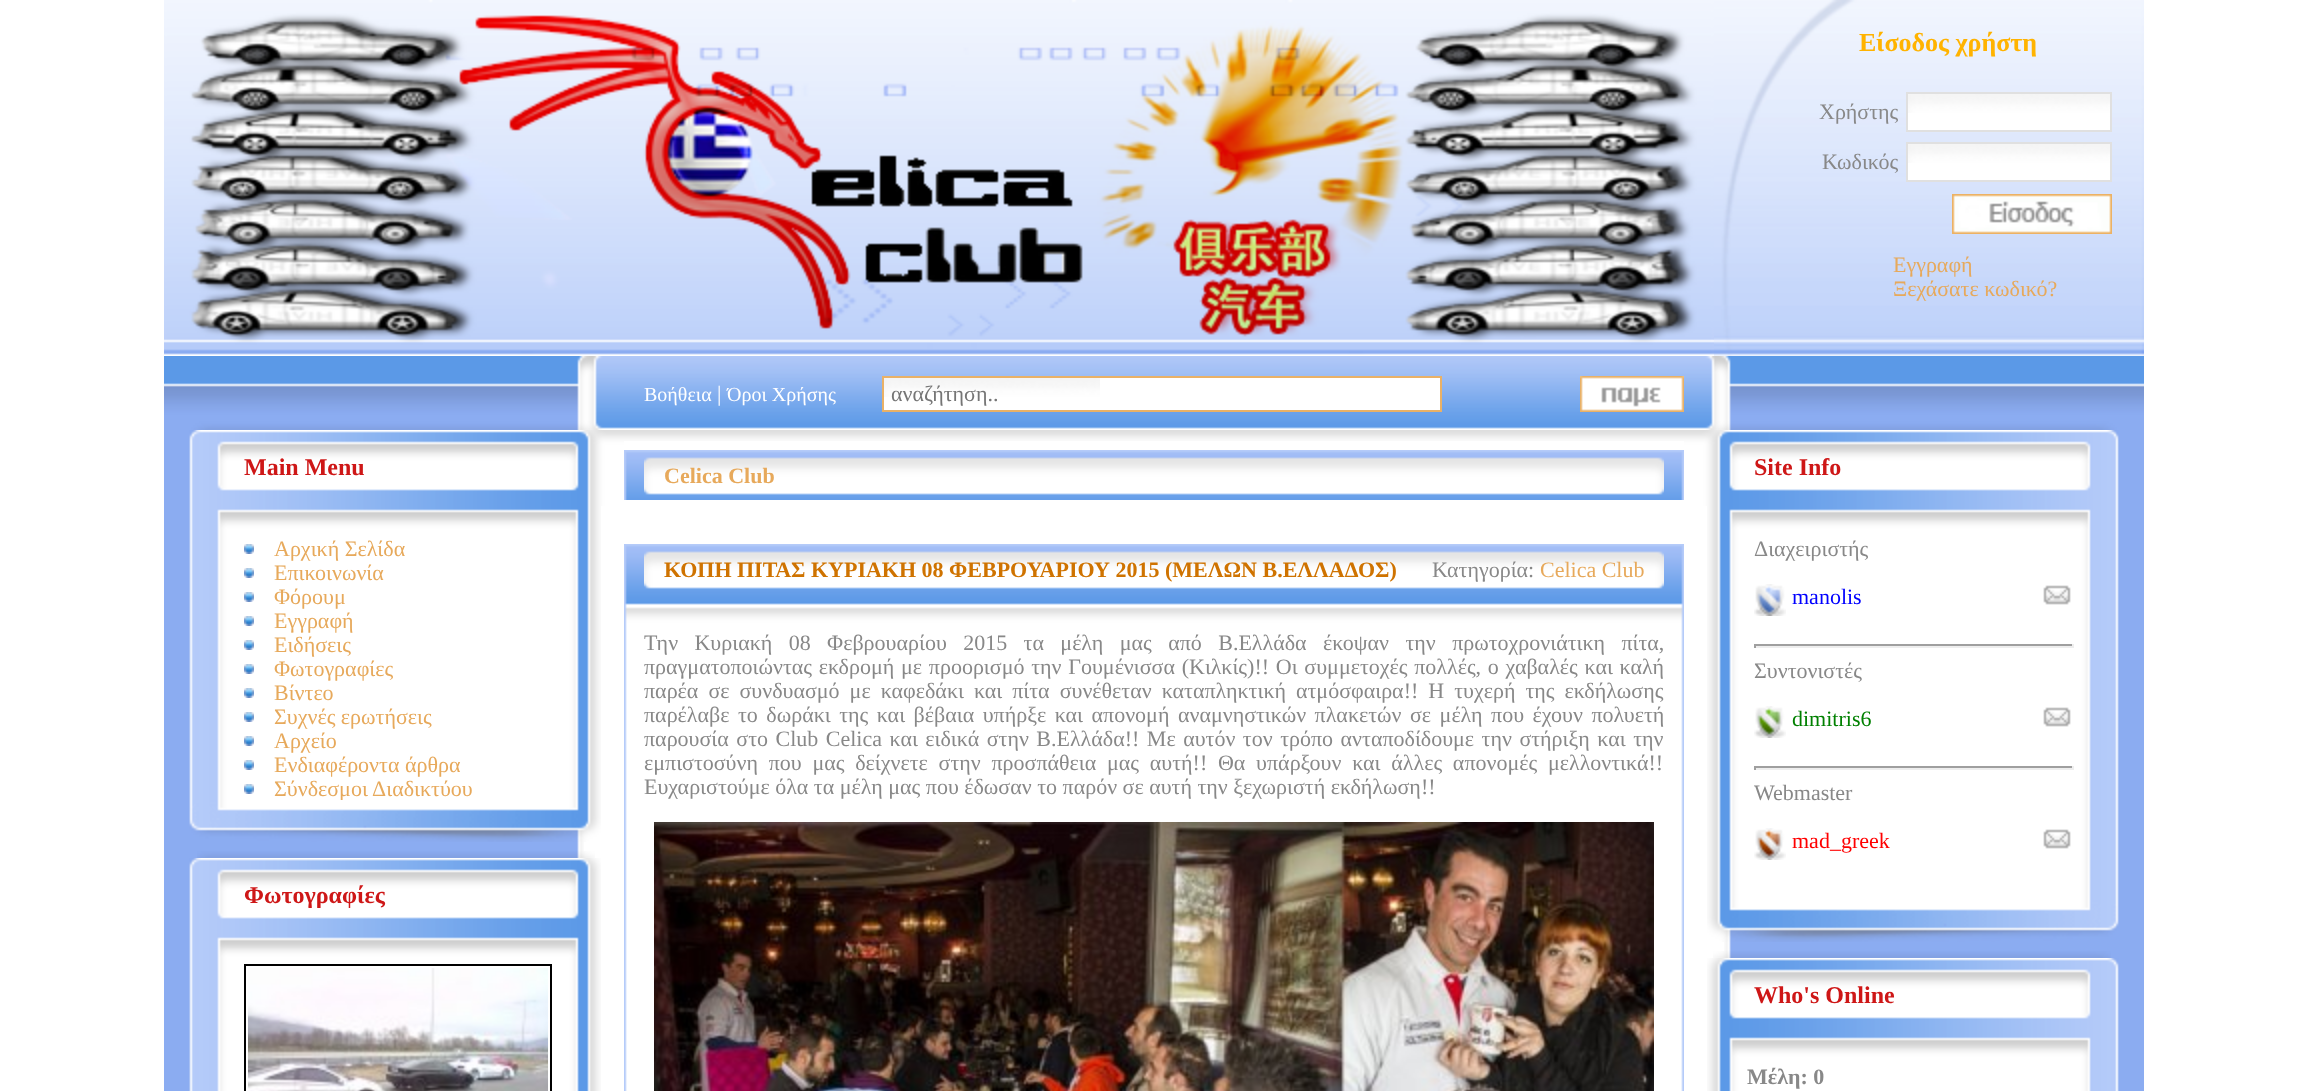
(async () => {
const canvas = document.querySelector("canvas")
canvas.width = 2308
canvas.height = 1091
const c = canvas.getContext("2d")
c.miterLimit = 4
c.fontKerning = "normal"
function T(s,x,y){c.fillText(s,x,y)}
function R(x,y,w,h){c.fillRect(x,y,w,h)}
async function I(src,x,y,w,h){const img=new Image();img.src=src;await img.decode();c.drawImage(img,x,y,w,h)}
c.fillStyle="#fff"
R(0,0,2308,1091)
await I("1.png",164,0,1550,355)
await I("2.png",1714,0,430,356)
c.font="bold 26px Liberation Serif"
c.fillStyle="#ffb300"
T("Είσοδος χρήστη",1859,51)
c.font="22px Liberation Serif"
c.fillStyle="#888"
T("Χρήστης",1819,119)
c.fillStyle="#fff"
R(1908,113,202,17)
await I("3.png",1908,94,202,19)
c.strokeStyle="#e0e0e0"
c.lineWidth=2
c.strokeRect(1907,93,204,38)
c.fillStyle="#888"
T("Κωδικός",1822,169)
c.fillStyle="#fff"
R(1908,163,202,17)
await I("3.png",1908,144,202,19)
c.strokeRect(1907,143,204,38)
await I("4.png",1952,194,160,40)
c.fillStyle="#e7a95b"
T("Εγγραφή",1893,272)
T("Ξεχάσατε κωδικό?",1893,296)
await I("5.png",164,430,420,661)
await I("6.png",164,356,460,74)
await I("7.png",189,430,435,76)
c.font="bold 24px Liberation Serif"
c.fillStyle="#ce1717"
T("Main Menu",244,475)
await I("8.png",189,506,412,30)
await I("9.png",189,536,412,264)
await I("10.png",244,544,10,10)
c.font="22px Liberation Serif"
c.fillStyle="#e7a95b"
T("Αρχική Σελίδα",274,556)
await I("10.png",244,568,10,10)
T("Επικοινωνία",274,580)
await I("10.png",244,592,10,10)
T("Φόρουμ",274,604)
await I("10.png",244,616,10,10)
T("Εγγραφή",274,628)
await I("10.png",244,640,10,10)
T("Ειδήσεις",274,652)
await I("10.png",244,664,10,10)
T("Φωτογραφίες",274,676)
await I("10.png",244,688,10,10)
T("Βίντεο",274,700)
await I("10.png",244,712,10,10)
T("Συχνές ερωτήσεις",274,724)
await I("10.png",244,736,10,10)
T("Αρχείο",274,748)
await I("10.png",244,760,10,10)
T("Ενδιαφέροντα άρθρα",274,772)
await I("10.png",244,784,10,10)
T("Σύνδεσμοι Διαδικτύου",274,796)
await I("11.png",189,800,412,42)
await I("12.png",197,851,398,7)
await I("13.png",189,858,412,76)
c.font="bold 24px Liberation Serif"
c.fillStyle="#ce1717"
T("Φωτογραφίες",244,903)
await I("8.png",189,934,412,30)
await I("14.png",189,964,412,127)
c.strokeStyle="#000"
c.strokeRect(245,965,306,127)
await I("15.png",248,968,300,123)
await I("16.png",624,356,1060,73)
c.font="20px Liberation Serif"
c.fillStyle="#fff"
T("Βοήθεια",644,401)
c.font="22px Liberation Serif"
T("|",717,401)
c.font="20px Liberation Serif"
T("Όροι Χρήσης",727,401)
R(884,378,556,32)
await I("17.png",884,378,216,19)
c.strokeStyle="#e9b167"
c.strokeRect(883,377,558,34)
c.font="22px Liberation Serif"
c.fillStyle="#757575"
T("αναζήτηση..",891,401)
await I("18.png",1580,376,104,36)
await I("19.png",624,430,1060,11)
await I("20.png",624,450,20,50)
await I("21.png",644,450,1020,50)
c.font="bold 22px Liberation Serif"
c.fillStyle="#e7a95b"
T("Celica Club",664,483)
await I("22.png",1664,450,20,50)
await I("20.png",624,544,20,50)
await I("21.png",644,544,1020,50)
c.fillStyle="#cf7300"
T("ΚΟΠΗ ΠΙΤΑΣ ΚΥΡΙΑΚΗ 08 ΦΕΒΡΟΥΑΡΙΟΥ 2015 (ΜΕΛΩΝ Β.ΕΛΛΑΔΟΣ)",664,577)
c.font="22px Liberation Serif"
c.fillStyle="#888"
T("Κατηγορία:",1432,577)
c.fillStyle="#e7a95b"
T("Celica Club",1540,577)
await I("22.png",1664,544,20,50)
await I("23.png",624,594,1060,36)
await I("24.png",624,630,1060,461)
c.wordSpacing="10.9px"
c.fillStyle="#888"
T("Την Κυριακή 08 Φεβρουαρίου 2015 τα μέλη μας από Β.Ελλάδα έκοψαν την πρωτοχρονιάτικη πίτα,",644,650)
c.wordSpacing="1.25px"
T("πραγματοποιώντας εκδρομή με προορισμό την Γουμένισσα (Κιλκίς)!! Οι συμμετοχές πολλές, ο χαβαλές και καλή",644,674)
c.wordSpacing="4.5px"
T("παρέα σε συνδυασμό με καφεδάκι και πίτα συνέθεταν καταπληκτική ατμόσφαιρα!! Η τυχερή της εκδήλωσης",644,698)
c.wordSpacing="3px"
T("παρέλαβε το δωράκι της και βέβαια υπήρξε και απονομή αναμνηστικών πλακετών σε μέλη που έχουν πολυετή",644,722)
c.wordSpacing="2px"
T("παρουσία στο Club Celica και ειδικά στην Β.Ελλάδα!! Με αυτόν τον τρόπο ανταποδίδουμε την στήριξη και την",644,746)
c.wordSpacing="5.25px"
T("εμπιστοσύνη που μας δείχνετε στην προσπάθεια μας αυτή!! Θα υπάρξουν και άλλες απονομές μελλοντικά!!",644,770)
c.wordSpacing="0px"
T("Ευχαριστούμε όλα τα μέλη μας που έδωσαν το παρόν σε αυτή την ξεχωριστή εκδήλωση!!",644,794)
await I("25.png",654,822,1000,269)
await I("26.png",1724,430,420,661)
await I("27.png",1684,356,460,74)
await I("28.png",1684,430,435,76)
c.font="bold 24px Liberation Serif"
c.fillStyle="#ce1717"
T("Site Info",1754,475)
await I("29.png",1707,506,412,30)
await I("30.png",1707,536,412,364)
c.font="22px Liberation Serif"
c.fillStyle="#888"
T("Διαχειριστής",1754,556)
await I("31.png",1754,584,32,32)
c.fillStyle="#00f"
T("manolis",1792,604)
await I("32.png",2043,585,28,20)
c.fillStyle="#9f9f9f"
R(1754,644,320,2)
c.fillStyle="#eee"
R(2072,644,2,4)
R(1754,646,320,2)
c.fillStyle="#9f9f9f"
R(1754,644,2,4)
c.fillStyle="#888"
T("Συντονιστές",1754,678)
await I("33.png",1754,706,32,32)
c.fillStyle="#008000"
T("dimitris6",1792,726)
await I("32.png",2043,707,28,20)
c.fillStyle="#9f9f9f"
R(1754,766,320,2)
c.fillStyle="#eee"
R(2072,766,2,4)
R(1754,768,320,2)
c.fillStyle="#9f9f9f"
R(1754,766,2,4)
c.fillStyle="#888"
T("Webmaster",1754,800)
await I("34.png",1754,828,32,32)
c.fillStyle="#f00"
T("mad_greek",1792,848)
await I("32.png",2043,829,28,20)
await I("35.png",1707,900,412,42)
await I("36.png",1713,951,398,7)
await I("37.png",1707,958,412,76)
c.font="bold 24px Liberation Serif"
c.fillStyle="#ce1717"
T("Who's Online",1754,1003)
await I("29.png",1707,1034,412,30)
await I("38.png",1707,1064,412,27)
c.font="bold 22px Liberation Serif"
c.fillStyle="#888"
T("Μέλη: 0",1747,1084)
})()
